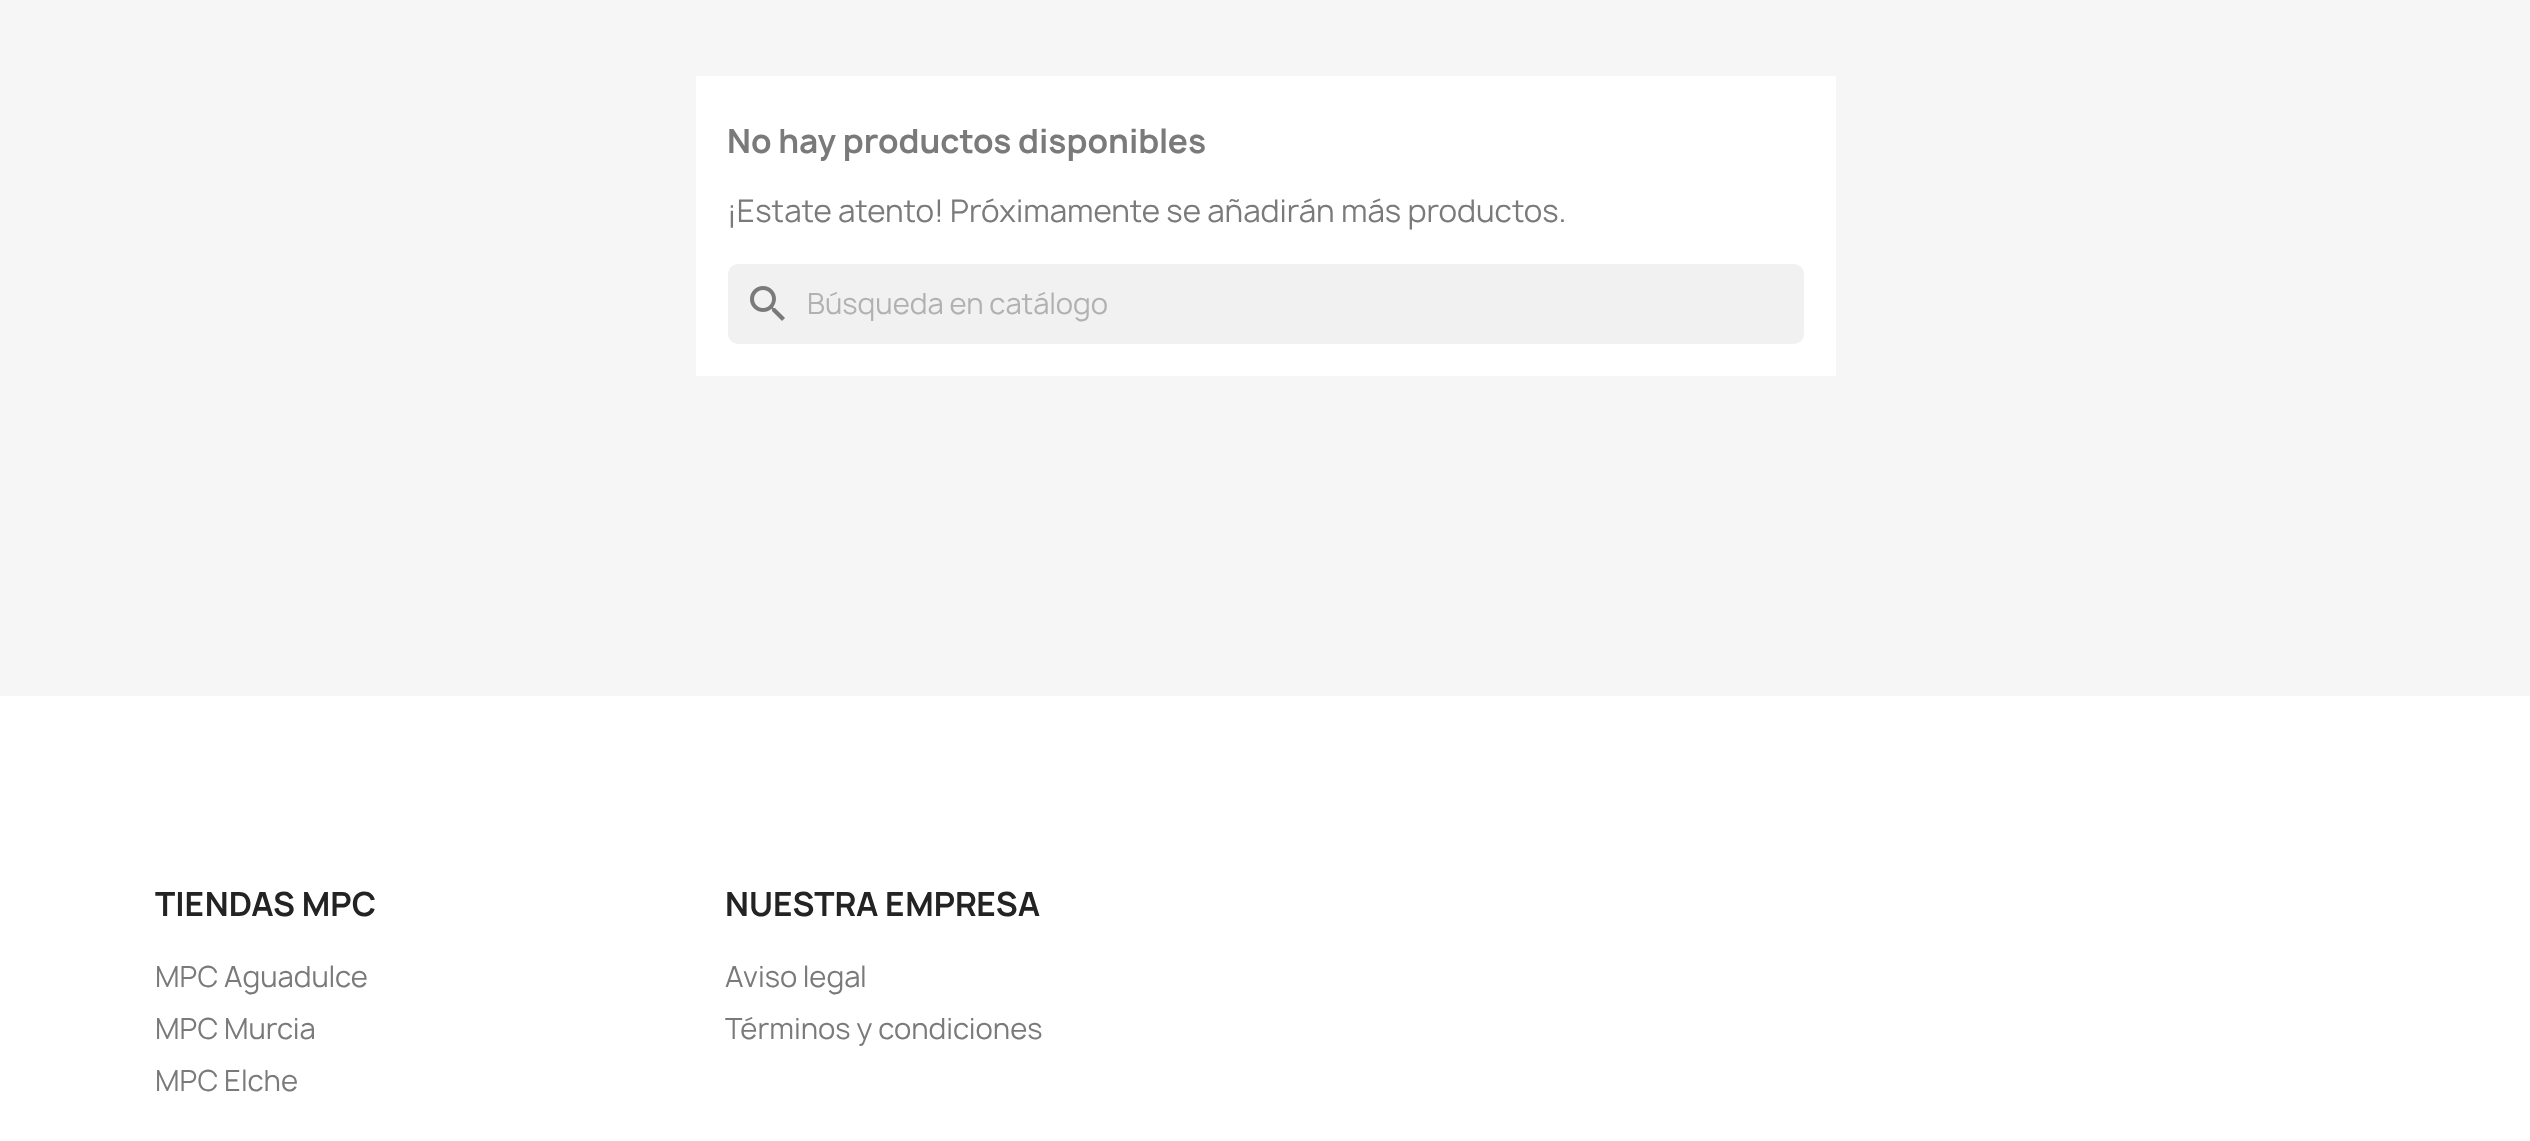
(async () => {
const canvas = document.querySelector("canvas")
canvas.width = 2530
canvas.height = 1141
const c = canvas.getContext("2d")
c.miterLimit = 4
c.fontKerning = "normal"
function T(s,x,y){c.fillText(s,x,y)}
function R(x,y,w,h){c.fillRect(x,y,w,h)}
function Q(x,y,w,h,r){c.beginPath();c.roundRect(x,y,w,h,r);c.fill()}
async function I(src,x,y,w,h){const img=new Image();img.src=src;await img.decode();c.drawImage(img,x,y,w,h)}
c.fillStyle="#fff"
R(0,0,2530,1141)
c.fillStyle="#f6f6f6"
R(0,0,2530,696)
c.fillStyle="#fff"
R(696,76,1140,300)
c.font="bold 32px Manrope"
c.fillStyle="#7a7a7a"
T("No hay productos disponibles",727,153)
c.font="30px Manrope"
T("¡Estate atento! Próximamente se añadirán más productos.",727,222)
c.fillStyle="#f1f1f1"
Q(728,264,1076,80,10)
await I("1.png",750,286,35,35)
c.font="28px Manrope"
c.fillStyle="#b1b1b1"
T("Búsqueda en catálogo",807,314)
c.font="bold 32px Manrope"
c.fillStyle="#232323"
T("TIENDAS MPC",155,916)
c.font="28px Manrope"
c.fillStyle="#7a7a7a"
T("MPC Aguadulce",155,987)
T("MPC Murcia",155,1039)
T("MPC Elche",155,1091)
c.font="bold 32px Manrope"
c.fillStyle="#232323"
T("NUESTRA EMPRESA",725,916)
c.font="28px Manrope"
c.fillStyle="#7a7a7a"
T("Aviso legal",725,987)
T("Términos y condiciones",725,1039)
})()
